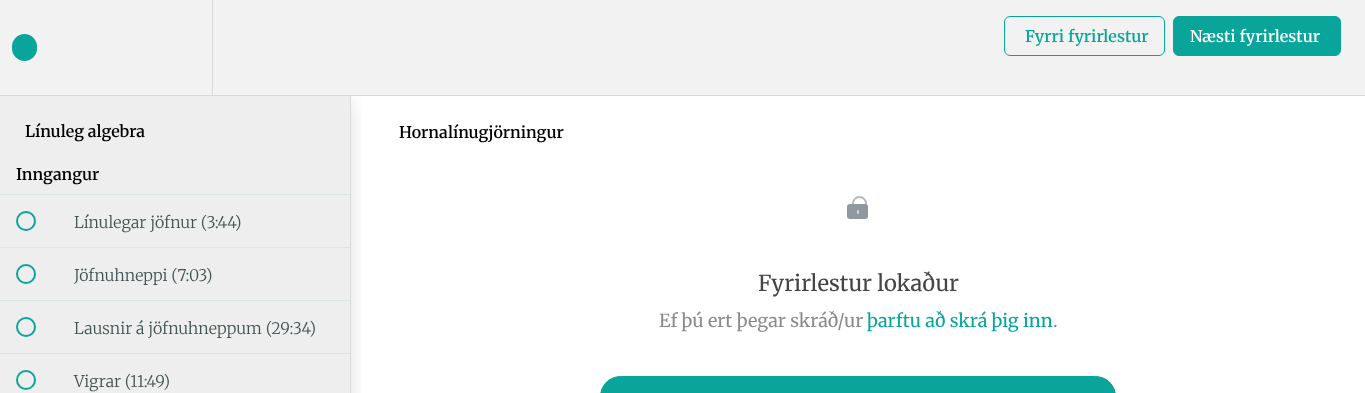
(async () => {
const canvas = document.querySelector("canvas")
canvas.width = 1365
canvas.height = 393
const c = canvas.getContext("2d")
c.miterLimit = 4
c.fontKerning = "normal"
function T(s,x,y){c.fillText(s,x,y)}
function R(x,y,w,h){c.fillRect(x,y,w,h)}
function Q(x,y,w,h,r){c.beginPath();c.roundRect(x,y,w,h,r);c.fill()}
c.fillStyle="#eee"
R(0,0,1365,393)
c.fillStyle="#fff"
R(351,96,1014,297)
c.save()
c.beginPath()
c.rect(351,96,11,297)
c.clip()
c.fillStyle="#20272d26"
c.filter="blur(10px)"
c.beginPath()
c.rect(0,102,351,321)
c.fill()
c.filter="none"
c.restore()
c.fillStyle="#f2f2f2"
R(0,0,1365,95)
c.fillStyle="#d7dadb"
R(0,95,1365,1)
c.fillStyle="#09a59a"
Q(12,34,25,27,12.5)
c.fillStyle="#d7dadb"
R(212,0,1,95)
c.beginPath()
c.roundRect(1004.5,16.5,160,39,5.5)
c.strokeStyle="#09a59a"
c.stroke()
c.font="600 16px Merriweather"
c.fillStyle="#09a59a"
T("Fyrri fyrirlestur",1025,42)
c.beginPath()
c.roundRect(1173.5,16.5,167,39,5.5)
c.fill()
c.stroke()
c.fillStyle="#fff"
T("Næsti fyrirlestur",1190,42)
c.fillStyle="#d7dadb"
R(350,96,1,297)
c.fillStyle="#000"
T("Línuleg algebra",25,137)
c.fillStyle="#d7e7e6"
R(0,194,350,1)
c.fillStyle="#000"
T("Inngangur",16,180)
c.fillStyle="#d7e7e6"
R(0,247,350,1)
c.beginPath()
c.arc(26,221,9,0,7)
c.lineWidth=2
c.stroke()
c.font="300 16px Merriweather"
c.fillStyle="#425252"
T("Línulegar jöfnur (3:44)",74,228)
c.fillStyle="#d7e7e6"
R(0,300,350,1)
c.beginPath()
c.arc(26,274,9,0,7)
c.stroke()
c.fillStyle="#425252"
T("Jöfnuhneppi (7:03)",74,281)
c.fillStyle="#d7e7e6"
R(0,353,350,1)
c.beginPath()
c.arc(26,327,9,0,7)
c.stroke()
c.fillStyle="#425252"
T("Lausnir á jöfnuhneppum (29:34)",74,334)
c.beginPath()
c.arc(26,380,9,0,7)
c.stroke()
T("Vigrar (11:49)",74,387)
c.font="600 16px Merriweather"
c.fillStyle="#000"
T("Hornalínugjörningur",399,138)
c.beginPath()
c.roundRect(853,197,13,20,6.5)
c.strokeStyle="#b5babf"
c.stroke()
c.fillStyle="#8f989f"
Q(847,204,21,15,3)
c.fillStyle="#d3d7dc"
Q(857,210,2,4,1)
c.font="22px Merriweather"
c.fillStyle="#454545"
T("Fyrirlestur lokaður",758,291)
c.font="18px Merriweather"
c.fillStyle="#8b8b8b"
T("Ef þú ert þegar skráð/ur",659,327)
c.fillStyle="#09a59a"
T("þarftu að skrá þig inn",867,327)
c.fillStyle="#8b8b8b"
T(".",1053,327)
c.fillStyle="#09a59a"
c.beginPath()
c.roundRect(600.5,376.5,515,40,22.5)
c.fill()
c.strokeStyle="#09a59a"
c.lineWidth=1
c.stroke()
})()
